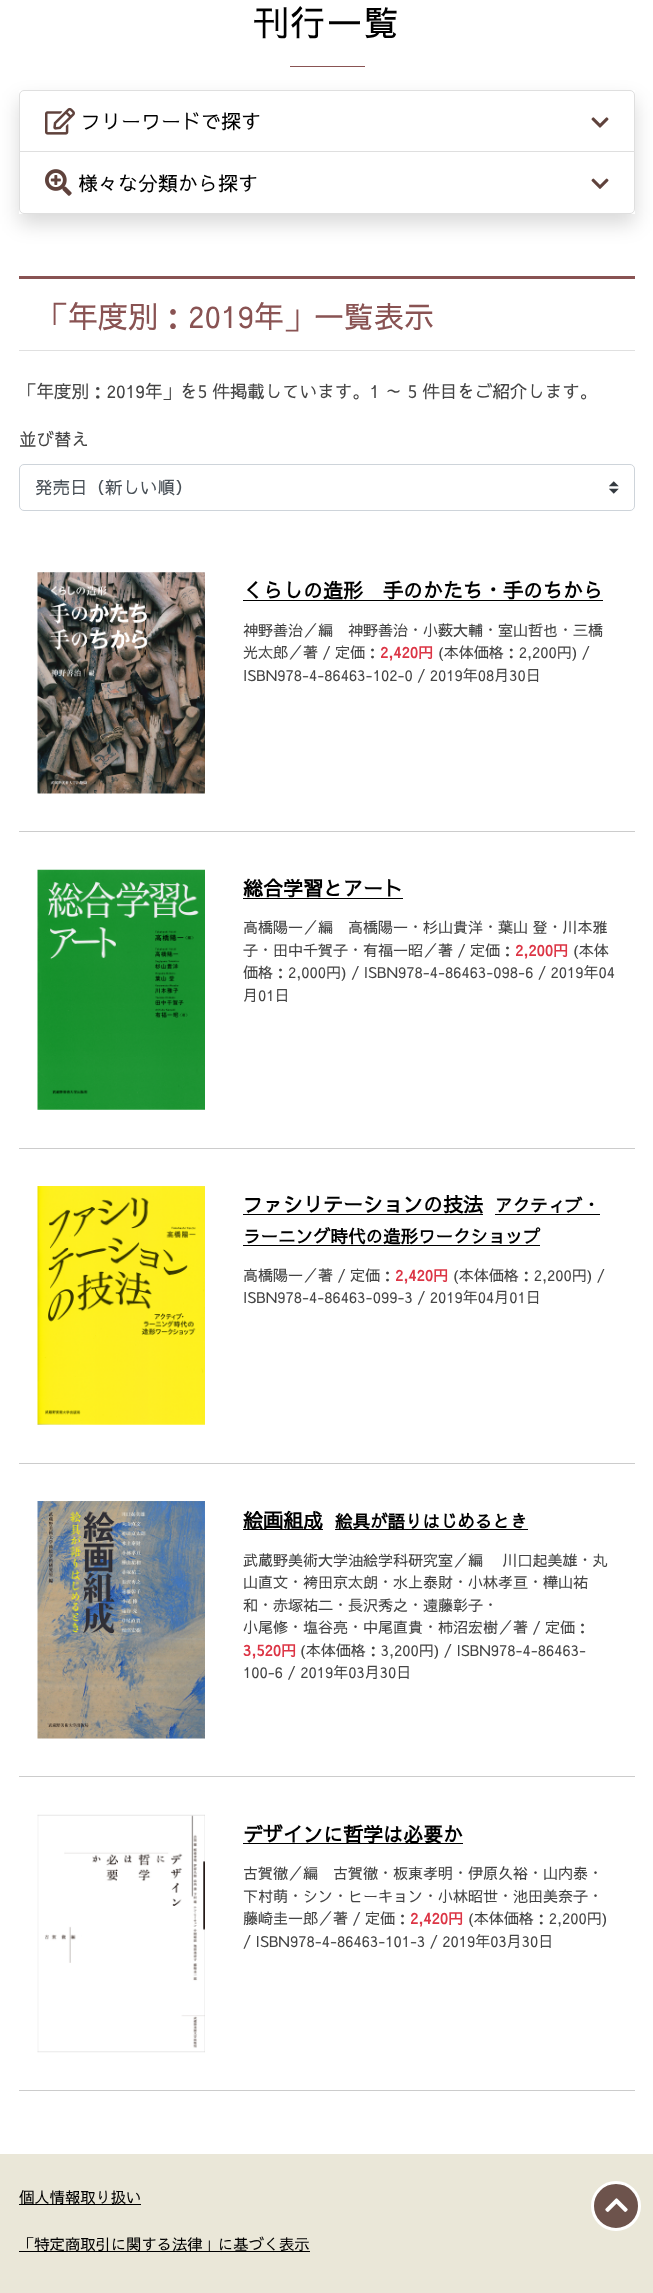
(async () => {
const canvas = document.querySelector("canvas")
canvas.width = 653
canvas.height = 2293
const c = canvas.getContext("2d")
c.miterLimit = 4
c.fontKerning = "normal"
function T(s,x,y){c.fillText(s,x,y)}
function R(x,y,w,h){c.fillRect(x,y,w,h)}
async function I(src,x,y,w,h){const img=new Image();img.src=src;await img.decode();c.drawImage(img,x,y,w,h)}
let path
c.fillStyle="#fff"
R(0,0,653,2293)
c.letterSpacing="2px"
c.font="35px Sawarabi Gothic"
c.fillStyle="#000"
T("刊行一覧",253,36)
c.fillStyle="#895353"
R(290,66,75,1)
c.save()
path = new Path2D("M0 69h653v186h-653zm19 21h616v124h-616z")
c.clip(path,"evenodd")
c.fillStyle="#00000026"
c.filter="blur(10px)"
c.beginPath()
c.rect(19,100,616,124)
c.fill()
c.filter="none"
c.restore()
c.beginPath()
c.roundRect(19.5,90.5,615,62,[4.5,4.5,0,0])
c.strokeStyle="#dfdfdf"
c.stroke()
await I("1.png",45,107,30,28)
c.letterSpacing="0px"
c.font="20px Sawarabi Gothic"
c.fillStyle="#000"
T("フリーワードで探す",81,129)
await I("2.png",591,117,18,11)
c.fillStyle="#fff"
c.beginPath()
c.roundRect(19.5,151.5,615,62,[0,0,4.5,4.5])
c.fill()
c.stroke()
await I("3.png",45,169,27,27)
c.fillStyle="#000"
T("様々な分類から探す",78,191)
await I("4.png",591,178,18,11)
c.fillStyle="#895353"
R(19,276,616,3)
c.fillStyle="#e0e0e0"
R(19,350,616,1)
c.font="30px Sawarabi Gothic"
c.fillStyle="#895353"
T("「年度別：2019年」一覧表示",38,328)
c.font="17.5px Sawarabi Gothic"
c.fillStyle="#444"
T("「年度別：2019年」を5 件掲載しています。1 ～ 5 件目をご紹介します。",19,398)
T("並び替え",19,446)
await I("5.png",609,481,10,13)
c.beginPath()
c.roundRect(19.5,464.5,615,46,4.5)
c.strokeStyle="#ced4da"
c.stroke()
c.fillStyle="#495057"
T("発売日（新しい順）",35,494)
c.fillStyle="#ccc"
R(19,831,616,1)
await I("6.png",37,572,168,222)
c.font="bold 20px Sawarabi Gothic"
c.fillStyle="#000"
T("くらしの造形　手のかたち・手のちから",243,598)
R(243,600,360,1)
c.font="15px Sawarabi Gothic"
c.fillStyle="#444"
T("神野善治／編　神野善治・小薮大輔・室山哲也・三橋",243,636)
T("光太郎／著 / 定価：",243,658)
c.font="bold 15px Sawarabi Gothic"
c.fillStyle="#dc3545"
T("2,420円",380,658)
c.font="15px Sawarabi Gothic"
c.fillStyle="#444"
T("(本体価格：2,200円) /",438,658)
T("ISBN978-4-86463-102-0 / 2019年08月30日",243,681)
c.fillStyle="#ccc"
R(19,1148,616,1)
await I("7.png",37,869,168,241)
c.font="bold 20px Sawarabi Gothic"
c.fillStyle="#000"
T("総合学習とアート",243,896)
R(243,898,160,1)
c.font="15px Sawarabi Gothic"
c.fillStyle="#444"
T("高橋陽一／編　高橋陽一・杉山貴洋・葉山 登・川本雅",243,933)
T("子・田中千賀子・有福一昭／著 / 定価：",243,956)
c.font="bold 15px Sawarabi Gothic"
c.fillStyle="#dc3545"
T("2,200円",515,956)
c.font="15px Sawarabi Gothic"
c.fillStyle="#444"
T("(本体",573,956)
T("価格：2,000円) / ISBN978-4-86463-098-6 / 2019年04",243,978)
T("月01日",243,1001)
c.fillStyle="#ccc"
R(19,1463,616,1)
await I("8.png",37,1186,168,239)
c.font="bold 20px Sawarabi Gothic"
c.fillStyle="#000"
T("ファシリテーションの技法",243,1212)
R(243,1214,240,1)
c.font="bold 17.5px Sawarabi Gothic"
T("アクティブ・",495,1212)
R(495,1214,105,1)
T("ラーニング時代の造形ワークショップ",243,1243)
R(243,1245,297,1)
c.font="15px Sawarabi Gothic"
c.fillStyle="#444"
T("高橋陽一／著 / 定価：",243,1281)
c.font="bold 15px Sawarabi Gothic"
c.fillStyle="#dc3545"
T("2,420円",395,1281)
c.font="15px Sawarabi Gothic"
c.fillStyle="#444"
T("(本体価格：2,200円) /",453,1281)
T("ISBN978-4-86463-099-3 / 2019年04月01日",243,1303)
c.fillStyle="#ccc"
R(19,1776,616,1)
await I("9.png",37,1501,168,238)
c.fillStyle="#000"
R(243,1529,80,1)
c.font="bold 20px Sawarabi Gothic"
T("絵画組成",243,1528)
R(335,1529,193,1)
c.font="bold 17.5px Sawarabi Gothic"
T("絵具が語りはじめるとき",335,1528)
c.font="15px Sawarabi Gothic"
c.fillStyle="#444"
T("武蔵野美術大学油絵学科研究室／編　 川口起美雄・丸",243,1566)
T("山直文・袴田京太朗・水上泰財・小林孝亘・樺山祐",243,1588)
T("和・赤塚祐二・長沢秀之・遠藤彰子・",243,1611)
T("小尾修・塩谷亮・中尾直貴・柿沼宏樹／著 / 定価：",243,1633)
c.font="bold 15px Sawarabi Gothic"
c.fillStyle="#dc3545"
T("3,520円",243,1656)
c.font="15px Sawarabi Gothic"
c.fillStyle="#444"
T("(本体価格：3,200円) / ISBN978-4-86463-",300,1656)
T("100-6 / 2019年03月30日",243,1678)
c.fillStyle="#ccc"
R(19,2090,616,1)
await I("10.png",37,1814,168,239)
c.fillStyle="#000"
R(243,1843,220,1)
c.font="bold 20px Sawarabi Gothic"
T("デザインに哲学は必要か",243,1842)
c.font="15px Sawarabi Gothic"
c.fillStyle="#444"
T("古賀徹／編　古賀徹・板東孝明・伊原久裕・山内泰・",243,1879)
T("下村萌・シン・ヒーキョン・小林昭世・池田美奈子・",243,1902)
T("藤崎圭一郎／著 / 定価：",243,1924)
c.font="bold 15px Sawarabi Gothic"
c.fillStyle="#dc3545"
T("2,420円",410,1924)
c.font="15px Sawarabi Gothic"
c.fillStyle="#444"
T("(本体価格：2,200円)",468,1924)
T("/ ISBN978-4-86463-101-3 / 2019年03月30日",243,1947)
c.fillStyle="#eae7d8"
R(0,2154,653,139)
c.fillStyle="#000"
R(19,2204,122,1)
c.font="15.3px Sawarabi Gothic"
T("個人情報取り扱い",19,2203)
R(19,2251,291,1)
T("「特定商取引に関する法律」に基づく表示",19,2250)
c.fillStyle="#6d534c"
c.beginPath()
c.arc(616,2206,23.5,0,7)
c.fill()
c.strokeStyle="#fff"
c.lineWidth=3
c.stroke()
await I("11.png",605,2198,23,14)
})()
